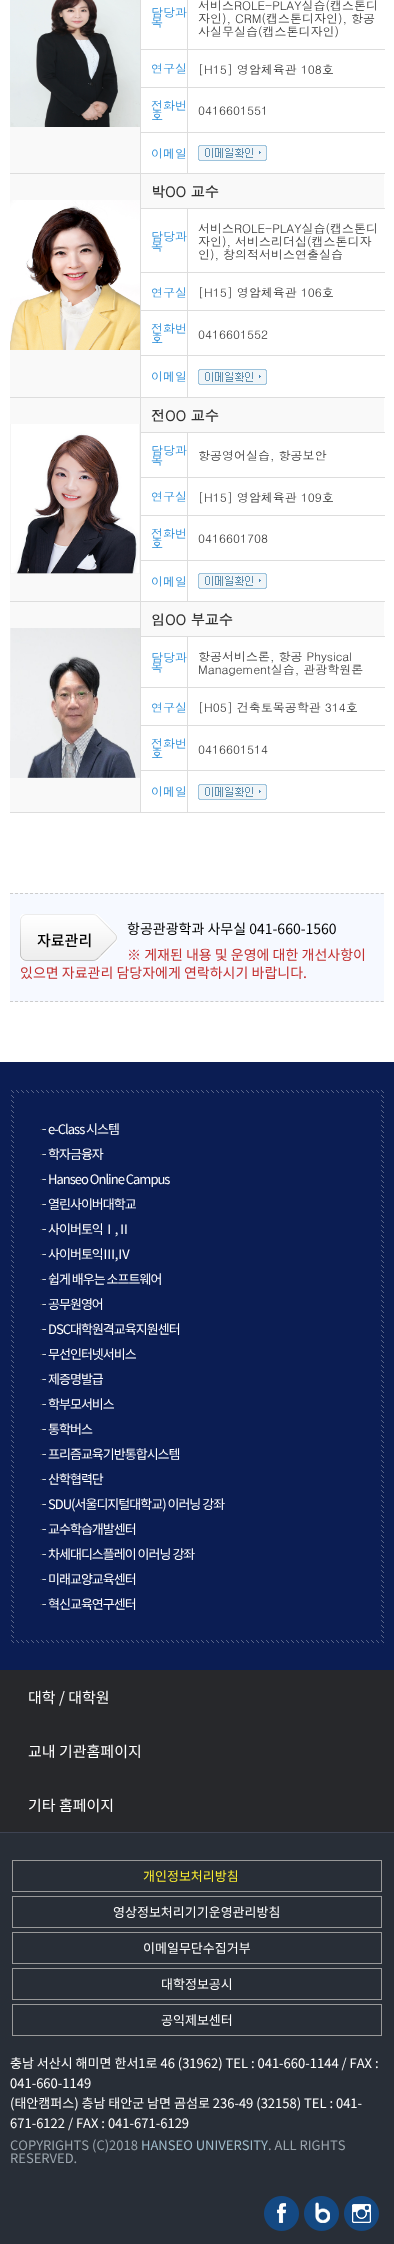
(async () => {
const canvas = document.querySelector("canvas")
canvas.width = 394
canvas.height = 2244
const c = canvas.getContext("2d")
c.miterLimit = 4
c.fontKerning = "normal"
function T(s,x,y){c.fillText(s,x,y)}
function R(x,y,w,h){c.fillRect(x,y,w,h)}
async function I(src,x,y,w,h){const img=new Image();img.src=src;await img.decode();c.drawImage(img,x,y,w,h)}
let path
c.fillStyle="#fff"
R(0,0,394,2244)
c.fillStyle="#f9f9f9"
R(10,127,130,46)
c.fillStyle="#ddd"
R(187,173,198,1)
R(187,132,1,42)
R(187,132,198,1)
R(187,87,1,46)
R(187,87,198,1)
R(187,49,1,39)
R(187,49,198,1)
R(187,0,1,50)
R(140,49,48,1)
R(140,87,48,1)
R(140,132,48,1)
R(187,397,198,1)
R(187,355,1,43)
R(187,355,198,1)
R(187,310,1,46)
R(187,310,198,1)
R(187,272,1,39)
R(187,272,198,1)
R(187,208,1,65)
R(140,208,245,1)
R(140,272,48,1)
R(140,310,48,1)
R(140,355,48,1)
R(187,601,198,1)
R(187,560,1,42)
R(187,560,198,1)
R(187,515,1,46)
R(187,515,198,1)
R(187,477,1,39)
R(187,477,198,1)
R(187,432,1,46)
R(140,432,245,1)
R(140,477,48,1)
R(140,515,48,1)
R(140,560,48,1)
R(187,812,198,1)
R(187,770,1,43)
R(187,770,198,1)
R(187,725,1,46)
R(187,725,198,1)
R(187,687,1,39)
R(187,687,198,1)
R(187,636,1,52)
R(140,636,245,1)
R(140,687,48,1)
R(140,725,48,1)
R(140,770,48,1)
R(140,812,48,1)
R(140,601,1,212)
R(140,601,48,1)
R(140,397,1,205)
R(140,397,48,1)
R(140,173,1,225)
R(140,173,48,1)
R(140,0,1,174)
R(10,173,131,1)
await I("1.png",10,0,130,127)
c.font="12px Dotum"
c.fillStyle="#2088d7"
T("담당과",151,17)
T("목",151,27)
c.fillStyle="#333"
T("서비스ROLE-PLAY실습(캡스톤디",198,10)
T("자인), CRM(캡스톤디자인), 항공",198,23)
T("사실무실습(캡스톤디자인)",198,36)
c.fillStyle="#2088d7"
T("연구실",151,73)
c.fillStyle="#333"
T("[H15] 영암체육관 108호",198,74)
c.fillStyle="#2088d7"
T("전화번",151,110)
T("호",151,120)
c.fillStyle="#333"
T("0416601551",198,115)
c.fillStyle="#2088d7"
T("이메일",151,158)
await I("2.png",198,145,69,16)
c.fillStyle="#f9f9f9"
R(10,174,130,223)
c.fillStyle="#ddd"
R(10,397,131,1)
await I("3.png",10,200,130,150)
c.fillStyle="#f9f9f9"
R(141,174,243,34)
c.font="bold 14px Dotum"
c.fillStyle="#333"
T("박OO 교수",151,197)
c.font="12px Dotum"
c.fillStyle="#2088d7"
T("담당과",151,241)
T("목",151,251)
c.fillStyle="#333"
T("서비스ROLE-PLAY실습(캡스톤디",198,233)
T("자인), 서비스리더십(캡스톤디자",198,246)
T("인), 창의적서비스연출실습",198,259)
c.fillStyle="#2088d7"
T("연구실",151,297)
c.fillStyle="#333"
T("[H15] 영암체육관 106호",198,297)
c.fillStyle="#2088d7"
T("전화번",151,333)
T("호",151,343)
c.fillStyle="#333"
T("0416601552",198,339)
c.fillStyle="#2088d7"
T("이메일",151,381)
await I("2.png",198,369,69,16)
c.fillStyle="#f9f9f9"
R(10,398,130,203)
c.fillStyle="#ddd"
R(10,601,131,1)
await I("4.png",10,424,130,150)
c.fillStyle="#f9f9f9"
R(141,398,243,34)
c.font="bold 14px Dotum"
c.fillStyle="#333"
T("전OO 교수",151,421)
c.font="12px Dotum"
c.fillStyle="#2088d7"
T("담당과",151,455)
T("목",151,465)
c.fillStyle="#333"
T("항공영어실습, 항공보안",198,460)
c.fillStyle="#2088d7"
T("연구실",151,501)
c.fillStyle="#333"
T("[H15] 영암체육관 109호",198,502)
c.fillStyle="#2088d7"
T("전화번",151,538)
T("호",151,548)
c.fillStyle="#333"
T("0416601708",198,543)
c.fillStyle="#2088d7"
T("이메일",151,586)
await I("2.png",198,573,69,16)
c.fillStyle="#f9f9f9"
R(10,602,130,210)
c.fillStyle="#ddd"
R(10,812,131,1)
await I("5.png",10,628,130,150)
c.fillStyle="#f9f9f9"
R(141,602,243,34)
c.font="bold 14px Dotum"
c.fillStyle="#333"
T("임OO 부교수",151,625)
c.font="12px Dotum"
c.fillStyle="#2088d7"
T("담당과",151,662)
T("목",151,672)
c.fillStyle="#333"
T("항공서비스론, 항공 Physical",198,661)
T("Management실습, 관광학원론",198,674)
c.fillStyle="#2088d7"
T("연구실",151,712)
c.fillStyle="#333"
T("[H05] 건축토목공학관 314호",198,712)
c.fillStyle="#2088d7"
T("전화번",151,748)
T("호",151,758)
c.fillStyle="#333"
T("0416601514",198,754)
c.fillStyle="#2088d7"
T("이메일",151,796)
await I("2.png",198,784,69,16)
c.fillStyle="#f6f9ff"
R(10,893,374,109)
path = new Path2D("M10 893.5h374")
c.strokeStyle="#ccc"
c.setLineDash([3,2.01])
c.stroke(path)
path = new Path2D("M10 1001.5h374")
c.stroke(path)
c.font="14px Noto Sans KR"
c.fillStyle="#000"
T("항공관광학과 사무실 041-660-1560",127,934)
c.fillStyle="#c22f2f"
T("※ 게재된 내용 및 운영에 대한 개선사항이",127,960)
T("있으면 자료관리 담당자에게 연락하시기 바랍니다.",20,978)
await I("6.png",20,914,97,47)
c.font="500 15px Noto Sans KR"
c.fillStyle="#000"
T("자료관리",37,946)
c.fillStyle="#0b1d53"
R(0,1062,394,608)
await I("7.png",11,1090,373,553)
R(16,1095,363,543)
await I("8.png",40,1129,6,1)
c.letterSpacing="-1px"
c.font="13px Noto Sans KR"
c.fillStyle="#fff"
T("e-Class 시스템",48,1134)
await I("8.png",40,1154,6,1)
T("학자금융자",48,1159)
await I("8.png",40,1179,6,1)
T("Hanseo Online Campus",48,1184)
await I("8.png",40,1204,6,1)
T("열린사이버대학교",48,1209)
await I("8.png",40,1229,6,1)
T("사이버토익Ⅰ,Ⅱ",48,1234)
await I("8.png",40,1254,6,1)
T("사이버토익Ⅲ,Ⅳ",48,1259)
await I("8.png",40,1279,6,1)
T("쉽게 배우는 소프트웨어",48,1284)
await I("8.png",40,1304,6,1)
T("공무원영어",48,1309)
await I("8.png",40,1329,6,1)
T("DSC대학원격교육지원센터",48,1334)
await I("8.png",40,1354,6,1)
T("무선인터넷서비스",48,1359)
await I("8.png",40,1379,6,1)
T("제증명발급",48,1384)
await I("8.png",40,1404,6,1)
T("학부모서비스",48,1409)
await I("8.png",40,1429,6,1)
T("통학버스",48,1434)
await I("8.png",40,1454,6,1)
T("프리즘교육기반통합시스템",48,1459)
await I("8.png",40,1479,6,1)
T("산학협력단",48,1484)
await I("8.png",40,1504,6,1)
T("SDU(서울디지털대학교) 이러닝 강좌",48,1509)
await I("8.png",40,1529,6,1)
T("교수학습개발센터",48,1534)
await I("8.png",40,1554,6,1)
T("차세대디스플레이 이러닝 강좌",48,1559)
await I("8.png",40,1579,6,1)
T("미래교양교육센터",48,1584)
await I("8.png",40,1604,6,1)
T("혁신교육연구센터",48,1609)
c.fillStyle="#27282b"
R(0,1670,394,162)
c.letterSpacing="0px"
c.font="15px Noto Sans KR"
c.fillStyle="#fff"
T("대학 / 대학원",28,1703)
T("교내 기관홈페이지",28,1757)
T("기타 홈페이지",28,1811)
c.fillStyle="#282e37"
R(0,1833,394,411)
c.fillStyle="#3e4352"
R(0,1832,394,1)
c.strokeStyle="#999"
c.setLineDash([])
c.strokeRect(12.5,1860.5,369,31)
c.font="13px Noto Sans KR"
c.fillStyle="#f9ec31"
T("개인정보처리방침",143,1881)
c.strokeRect(12.5,1896.5,369,31)
c.fillStyle="#fff"
T("영상정보처리기기운영관리방침",113,1917)
c.strokeRect(12.5,1932.5,369,31)
T("이메일무단수집거부",143,1953)
c.strokeRect(12.5,1968.5,369,31)
T("대학정보공시",161,1989)
c.strokeRect(12.5,2004.5,369,31)
T("공익제보센터",161,2025)
T("충남 서산시 해미면 한서1로 46 (31962) TEL : 041-660-1144 / FAX :",10,2068)
T("041-660-1149",10,2088)
T("(태안캠퍼스) 층남 태안군 남면 곰섬로 236-49 (32158) TEL : 041-",10,2108)
T("671-6122 / FAX : 041-671-6129",10,2128)
c.fillStyle="#9ba5ad"
T("COPYRIGHTS (C)2018",10,2150)
c.fillStyle="#a0bdcc"
T("HANSEO UNIVERSITY",141,2150)
c.fillStyle="#9ba5ad"
T(". ALL RIGHTS",268,2150)
T("RESERVED.",10,2163)
await I("9.png",264,2196,35,35)
await I("10.png",304,2196,35,35)
await I("11.png",344,2196,35,35)
})()
